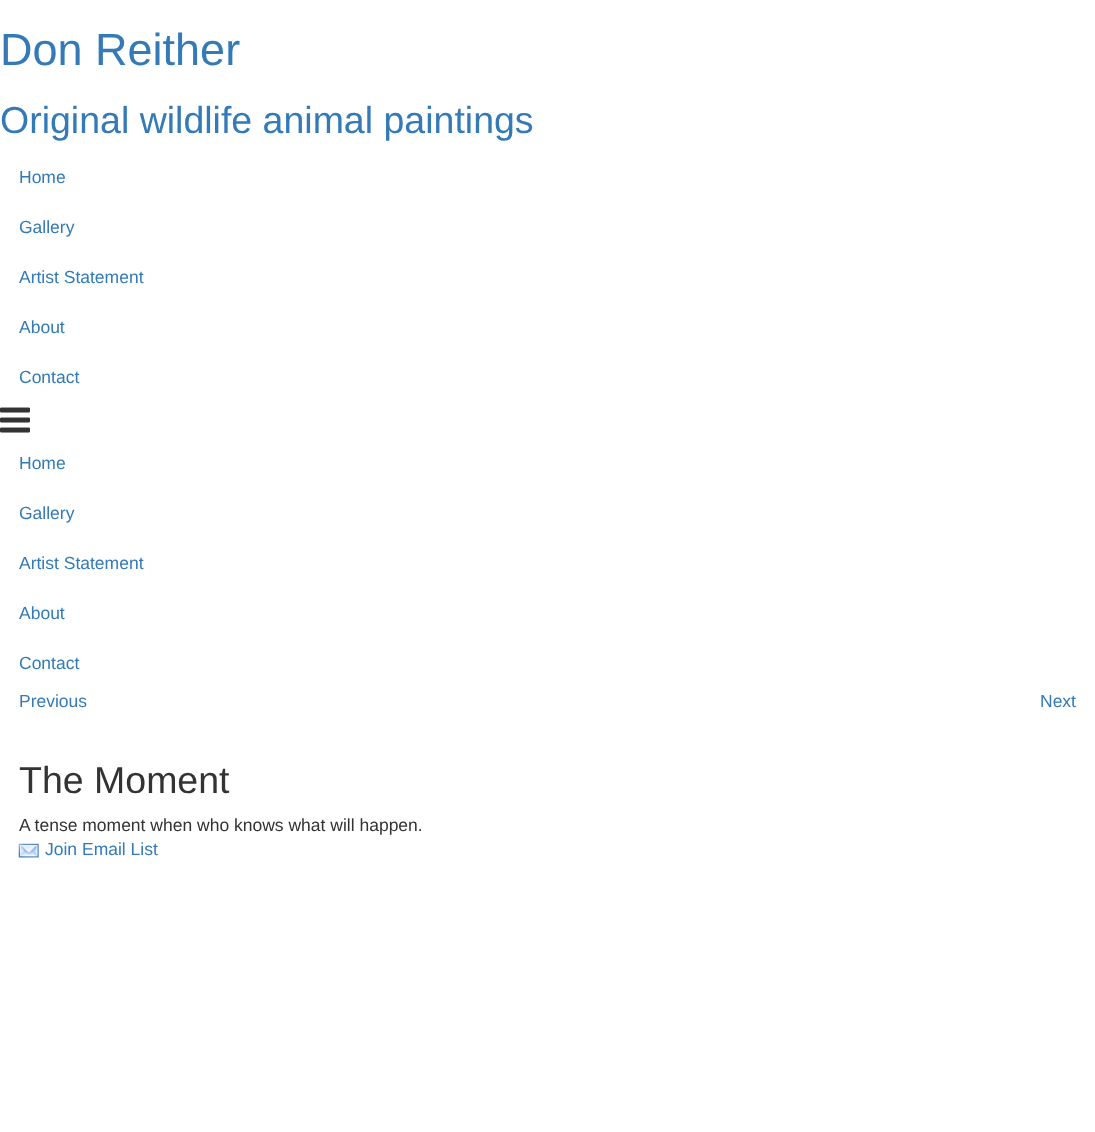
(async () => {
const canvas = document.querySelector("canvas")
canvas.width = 1095
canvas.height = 1132
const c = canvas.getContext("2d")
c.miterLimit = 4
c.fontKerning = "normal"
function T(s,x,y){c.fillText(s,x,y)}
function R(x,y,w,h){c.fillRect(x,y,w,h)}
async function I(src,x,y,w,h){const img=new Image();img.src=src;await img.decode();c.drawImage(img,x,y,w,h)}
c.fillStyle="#fff"
R(0,0,1095,1132)
c.font="45px Liberation Sans"
c.fillStyle="#337ab7"
T("Don Reither",0,65)
c.font="37.5px Liberation Sans"
T("Original wildlife animal paintings",0,133)
c.font="17.5px Liberation Sans"
T("Home",19,183)
T("Gallery",19,233)
T("Artist Statement",19,283)
T("About",19,333)
T("Contact",19,383)
await I("1.png",0,407,30,26)
T("Home",19,469)
T("Gallery",19,519)
T("Artist Statement",19,569)
T("About",19,619)
T("Contact",19,669)
T("Previous",19,707)
T("Next",1040,707)
c.font="37.5px Liberation Sans"
c.fillStyle="#333"
T("The Moment",19,793)
c.font="17.5px Liberation Sans"
T("A tense moment when who knows what will happen.",19,831)
await I("2.png",18,843,21,15)
c.fillStyle="#337ab7"
T("Join Email List",45,855)
})()
